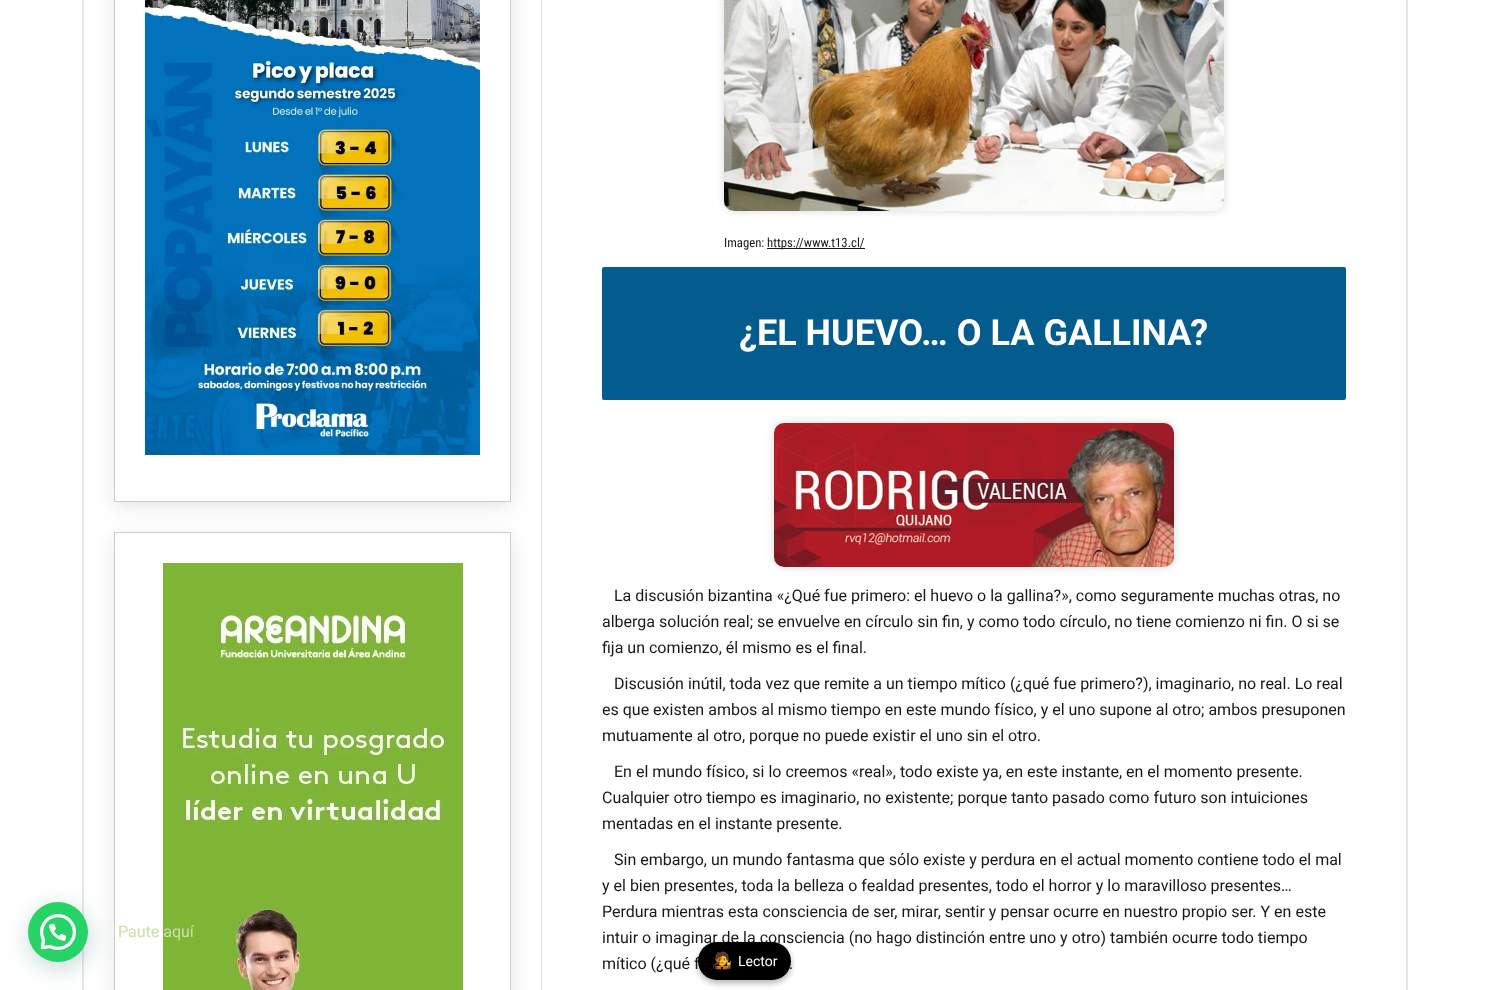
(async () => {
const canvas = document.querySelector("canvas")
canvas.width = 1490
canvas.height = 990
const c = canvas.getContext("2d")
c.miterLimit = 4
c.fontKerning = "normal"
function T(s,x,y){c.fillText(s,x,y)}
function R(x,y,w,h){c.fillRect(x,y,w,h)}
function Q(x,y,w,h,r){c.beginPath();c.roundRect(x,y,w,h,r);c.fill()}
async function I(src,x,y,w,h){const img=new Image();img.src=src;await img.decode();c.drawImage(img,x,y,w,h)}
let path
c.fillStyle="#fff"
R(0,0,1490,990)
c.strokeStyle="#e6e6e6"
c.lineWidth=2
c.strokeRect(83,-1,1324,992)
c.save()
path = new Path2D("M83 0h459v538h-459zm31-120h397v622h-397z")
c.clip(path,"evenodd")
c.fillStyle="#0000001a"
c.filter="blur(10px)"
c.beginPath()
c.rect(114,-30,397,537)
c.fill()
c.filter="none"
c.restore()
c.save()
path = new Path2D("M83 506h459v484h-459zm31 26h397v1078h-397z")
c.clip(path,"evenodd")
c.fillStyle="#0000001a"
c.filter="blur(10px)"
c.beginPath()
c.rect(114,537,397,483)
c.fill()
c.filter="none"
c.restore()
c.strokeStyle="#ccc"
c.lineWidth=1
c.strokeRect(114.5,532.5,396,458)
c.fillStyle="#075e543d"
c.filter="blur(12px)"
c.beginPath()
c.roundRect(29,908,60,60,30)
c.fill()
c.filter="none"
c.fillStyle="#25d366"
c.beginPath()
c.arc(58,932,30,0,7)
c.fill()
await I("1.png",40,914,36,36)
await I("3.png",163,563,300,427)
c.font="16px Roboto"
c.fillStyle="#c9e0ab"
T("Paute aquí",118,937)
c.strokeRect(114.5,-.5,396,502)
await I("2.png",145,0,335,455)
c.fillStyle="#e5e5e5"
R(541,0,1,990)
c.fillStyle="#00000026"
c.filter="blur(4px)"
c.beginPath()
c.roundRect(724,-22,500,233,10)
c.fill()
c.filter="none"
await I("4.png",724,0,500,211)
c.font="12.75px Roboto Condensed"
c.fillStyle="#181818"
T("Imagen:",724,247)
R(767,248,98,1)
T("https://www.t13.cl/",767,247)
c.fillStyle="#045b8e"
Q(602,267,744,133,2)
c.font="bold 36px Roboto"
c.fillStyle="#fff"
T("¿EL HUEVO… O LA GALLINA?",739,345)
c.fillStyle="#00000026"
c.filter="blur(4px)"
c.beginPath()
c.roundRect(774,423,400,144,10)
c.fill()
c.filter="none"
await I("5.png",774,423,400,144)
c.font="16px Roboto"
c.fillStyle="#181818"
T("La discusión bizantina «¿Qué fue primero: el huevo o la gallina?», como seguramente muchas otras, no",614,601)
T("alberga solución real; se envuelve en círculo sin fin, y como todo círculo, no tiene comienzo ni fin. O si se",602,627)
T("fija un comienzo, él mismo es el final.",602,653)
T("Discusión inútil, toda vez que remite a un tiempo mítico (¿qué fue primero?), imaginario, no real. Lo real",614,689)
T("es que existen ambos al mismo tiempo en este mundo físico, y el uno supone al otro; ambos presuponen",602,715)
T("mutuamente al otro, porque no puede existir el uno sin el otro.",602,741)
T("En el mundo físico, si lo creemos «real», todo existe ya, en este instante, en el momento presente.",614,777)
T("Cualquier otro tiempo es imaginario, no existente; porque tanto pasado como futuro son intuiciones",602,803)
T("mentadas en el instante presente.",602,829)
T("Sin embargo, un mundo fantasma que sólo existe y perdura en el actual momento contiene todo el mal",614,865)
T("y el bien presentes, toda la belleza o fealdad presentes, todo el horror y lo maravilloso presentes…",602,891)
T("Perdura mientras esta consciencia de ser, mirar, sentir y pensar ocurre en nuestro propio ser. Y en este",602,917)
T("intuir o imaginar de la consciencia (no hago distinción entre uno y otro) también ocurre todo tiempo",602,943)
T("mítico (¿qué f",602,969)
T(".",789,969)
c.fillStyle="#0000004d"
c.filter="blur(3px)"
c.beginPath()
c.roundRect(698,945,93,38,19)
c.fill()
c.filter="none"
c.fillStyle="#000"
Q(698,942,93,38,19)
c.font="16px Noto Color Emoji"
c.fillStyle="#fff"
T("🧑‍🎤",712,966)
c.font="14px Roboto"
T("Lector",738,966)
})()
